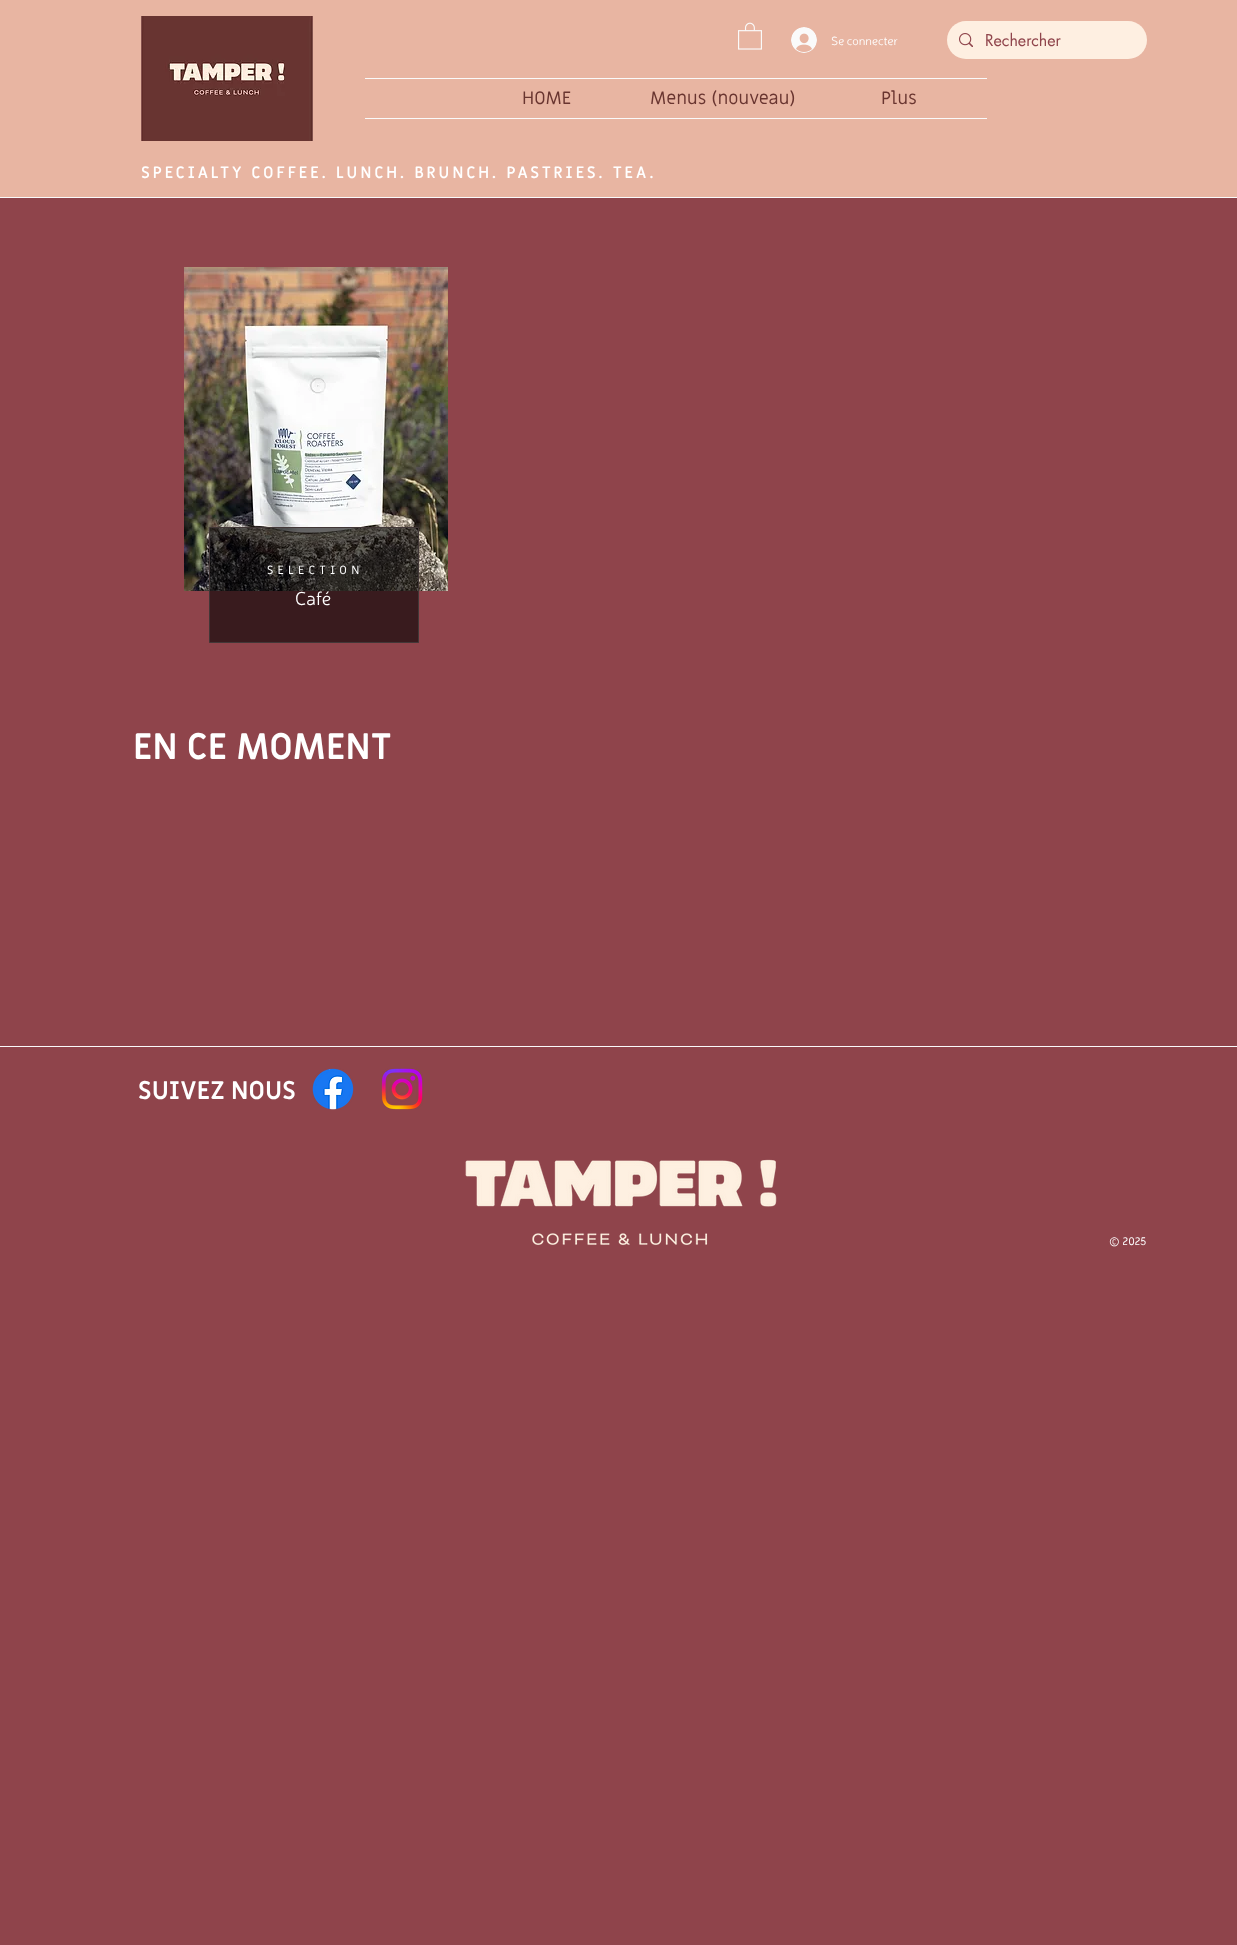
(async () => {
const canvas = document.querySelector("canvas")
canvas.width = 1237
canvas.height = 1945
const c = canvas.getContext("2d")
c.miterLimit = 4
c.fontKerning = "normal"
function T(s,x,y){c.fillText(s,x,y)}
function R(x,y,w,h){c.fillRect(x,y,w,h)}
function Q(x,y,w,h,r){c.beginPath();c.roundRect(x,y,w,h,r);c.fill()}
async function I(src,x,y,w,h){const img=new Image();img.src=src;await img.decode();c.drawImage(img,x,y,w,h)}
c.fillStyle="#8f444b"
R(0,0,1237,1945)
c.fillStyle="#fafafa"
R(0,197,1237,1)
c.fillStyle="#e8b5a2"
R(0,0,1237,197)
await I("1.png",141,16,172,125)
await I("2.png",738,22,24,28)
await I("3.png",791,27,26,26)
c.font="300 12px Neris"
c.fillStyle="#fff"
T("Se connecter",831,45)
c.fillStyle="#feefe1"
Q(947,21,200,38,19)
await I("4.png",959,33,14,14)
c.font="16px futura"
c.fillStyle="#8f444b"
T("Rechercher",985,46)
c.fillStyle="#fafafa"
R(365,78,622,1)
R(365,118,622,1)
c.font="18px Miriam Libre"
c.fillStyle="#693530"
T("HOME",522,104)
T("Menus (nouveau)",650,104)
T("Plus",881,104)
c.letterSpacing="3.05px"
c.font="bold 16px 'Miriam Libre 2'"
c.fillStyle="#fff"
T("SPECIALTY COFFEE. LUNCH. BRUNCH. PASTRIES. TEA.",141,178)
await I("5.png",184,267,264,324)
c.fillStyle="#00000099"
c.beginPath()
c.rect(209.5,527.5,209,115)
c.fill()
c.strokeStyle="#423737"
c.stroke()
c.letterSpacing="4.25px"
c.font="12px Miriam Libre"
c.fillStyle="#fff"
T("SELECTION",267,574)
c.letterSpacing="0px"
c.font="300 19px Neris"
T("Café",295,605)
c.font="bold 36px Miriam Libre"
T("EN CE MOMENT",133,759)
c.fillStyle="#fafafa"
R(0,1046,1237,1)
c.font="bold 25px Miriam Libre"
c.fillStyle="#fff"
T("SUIVEZ NOUS",138,1099)
await I("6.png",312,1068,42,42)
await I("7.png",381,1068,42,42)
await I("8.png",465,1159,312,87)
c.font="11px Miriam Libre"
T("© 2025",1109,1245)
})()
